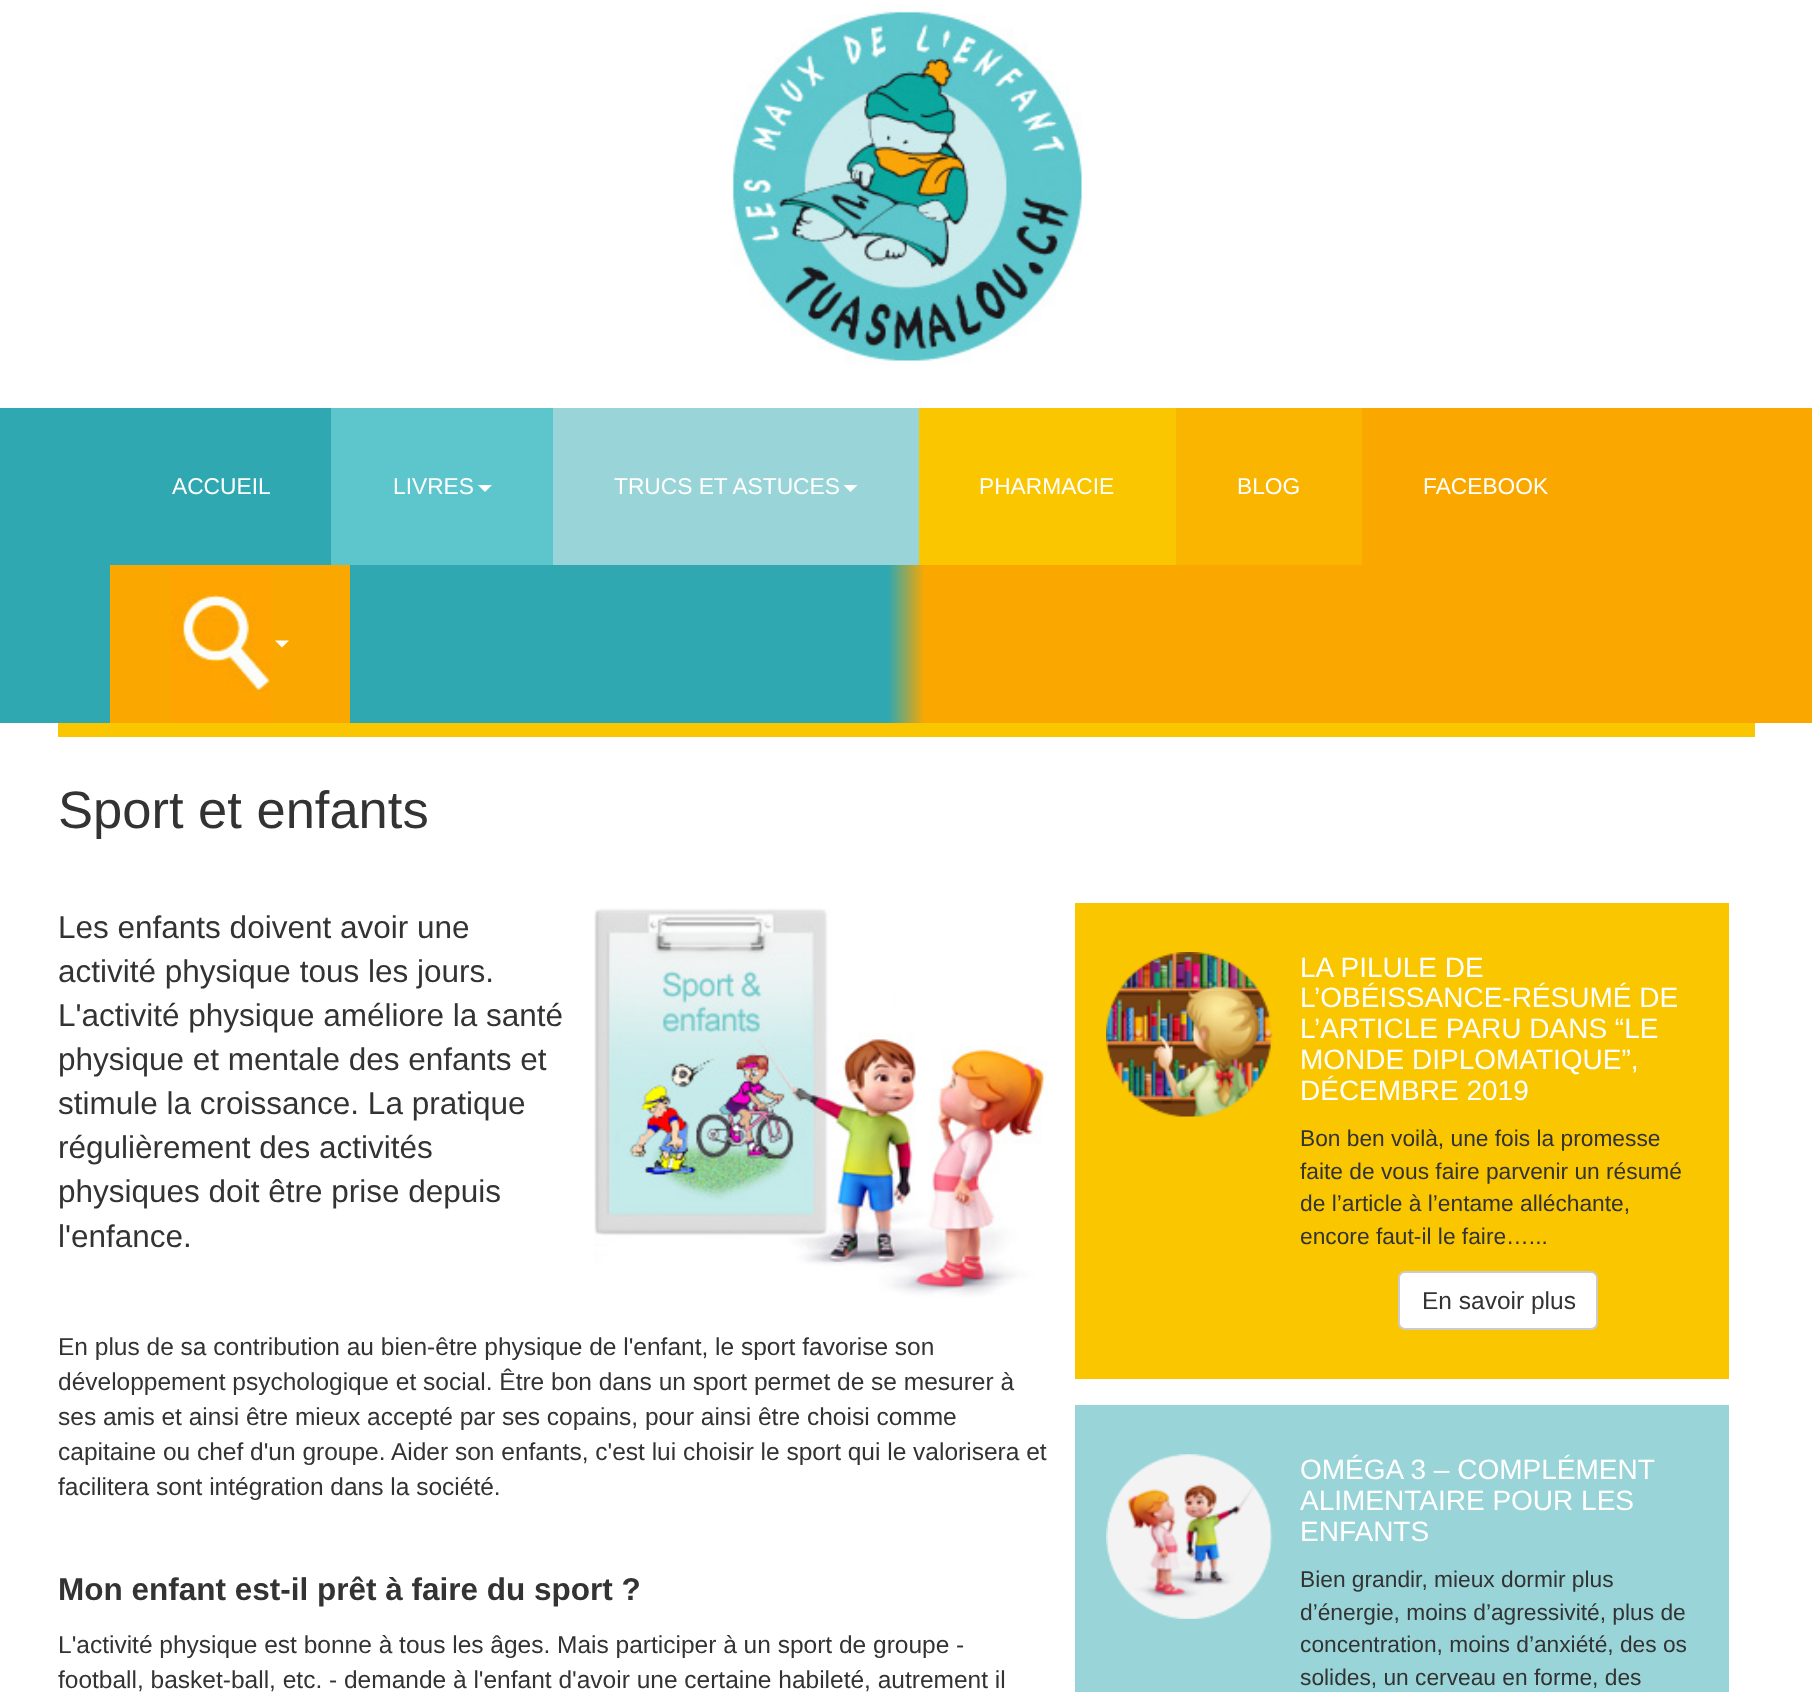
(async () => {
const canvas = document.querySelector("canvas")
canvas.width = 1812
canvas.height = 1692
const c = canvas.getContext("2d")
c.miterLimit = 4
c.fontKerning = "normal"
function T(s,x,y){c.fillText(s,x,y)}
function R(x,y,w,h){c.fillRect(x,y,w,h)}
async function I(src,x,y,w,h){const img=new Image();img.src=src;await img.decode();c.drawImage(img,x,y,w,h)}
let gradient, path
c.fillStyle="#fff"
R(0,0,1812,1692)
await I("1.png",732,4,351,360)
gradient = c.createLinearGradient(0,565,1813,565)
gradient.addColorStop(0,"#30a8b1")
gradient.addColorStop(.49,"#30a8b1")
gradient.addColorStop(.51,"#faa700")
gradient.addColorStop(1,"#faa700")
c.fillStyle = gradient
R(0,408,1812,315)
c.font="22.75px Liberation Sans"
c.fillStyle="#fff"
T("ACCUEIL",172,494)
c.fillStyle="#5cc6cc"
R(331,408,222,157)
c.fillStyle="#fff"
T("LIVRES",393,494)
path = new Path2D("M478 485h14l-7 7z")
c.fill(path)
c.fillStyle="#99d5d8"
R(553,408,366,157)
c.fillStyle="#fff"
T("TRUCS ET ASTUCES",614,494)
path = new Path2D("M843.5 485h14l-7 7z")
c.fill(path)
c.fillStyle="#f9c600"
R(919,408,257,157)
c.fillStyle="#fff"
T("PHARMACIE",979,494)
c.fillStyle="#f9b500"
R(1176,408,186,157)
c.fillStyle="#fff"
T("BLOG",1237,494)
T("FACEBOOK",1423,494)
c.fillStyle="#faa700"
R(110,565,240,158)
await I("2.png",171,566,100,156)
c.fillStyle="#fff"
path = new Path2D("M275 640.5h14l-7 7z")
c.fill(path)
c.fillStyle="#f9c600"
R(58,723,1697,14)
c.font="52.5px Liberation Sans"
c.fillStyle="#333"
T("Sport et enfants",58,828)
await I("3.png",594,908,454,390)
c.font="31.5px Liberation Sans"
T("Les enfants doivent avoir une",58,938)
T("activité physique tous les jours.",58,982)
T("L'activité physique améliore la santé",58,1026)
T("physique et mentale des enfants et",58,1070)
T("stimule la croissance. La pratique",58,1114)
T("régulièrement des activités",58,1158)
T("physiques doit être prise depuis",58,1202)
T("l'enfance.",58,1247)
c.font="24.5px Liberation Sans"
T("En plus de sa contribution au bien-être physique de l'enfant, le sport favorise son",58,1355)
T("développement psychologique et social. Être bon dans un sport permet de se mesurer à",58,1390)
T("ses amis et ainsi être mieux accepté par ses copains, pour ainsi être choisi comme",58,1425)
T("capitaine ou chef d'un groupe. Aider son enfants, c'est lui choisir le sport qui le valorisera et",58,1460)
T("facilitera sont intégration dans la société.",58,1495)
c.font="bold 31.5px Liberation Sans"
T("Mon enfant est-il prêt à faire du sport ?",58,1600)
c.font="24.5px Liberation Sans"
T("L'activité physique est bonne à tous les âges. Mais participer à un sport de groupe -",58,1653)
T("football, basket-ball, etc. - demande à l'enfant d'avoir une certaine habileté, autrement il",58,1688)
c.fillStyle="#f9c600"
R(1075,903,654,476)
await I("4.png",1106,952,167,165)
c.font="28px Liberation Sans"
c.fillStyle="#fff"
T("LA PILULE DE",1300,977)
T("L’OBÉISSANCE-RÉSUMÉ DE",1300,1007)
T("L’ARTICLE PARU DANS “LE",1300,1038)
T("MONDE DIPLOMATIQUE”,",1300,1069)
T("DÉCEMBRE 2019",1300,1100)
c.font="22.75px Liberation Sans"
c.fillStyle="#333"
T("Bon ben voilà, une fois la promesse",1300,1146)
T("faite de vous faire parvenir un résumé",1300,1179)
T("de l’article à l’entame alléchante,",1300,1211)
T("encore faut-il le faire…...",1300,1244)
c.fillStyle="#fff"
c.beginPath()
c.roundRect(1399,1272,198,57,6)
c.fill()
c.strokeStyle="#ccc"
c.lineWidth=2
c.stroke()
c.font="24.5px Liberation Sans"
c.fillStyle="#333"
T("En savoir plus",1422,1309)
c.fillStyle="#99d5d8"
R(1075,1405,654,287)
await I("5.png",1106,1454,167,165)
c.font="28px Liberation Sans"
c.fillStyle="#fff"
T("OMÉGA 3 – COMPLÉMENT",1300,1479)
T("ALIMENTAIRE POUR LES",1300,1510)
T("ENFANTS",1300,1541)
c.font="22.75px Liberation Sans"
c.fillStyle="#333"
T("Bien grandir, mieux dormir plus",1300,1587)
T("d’énergie, moins d’agressivité, plus de",1300,1620)
T("concentration, moins d’anxiété, des os",1300,1652)
T("solides, un cerveau en forme, des",1300,1685)
})()
